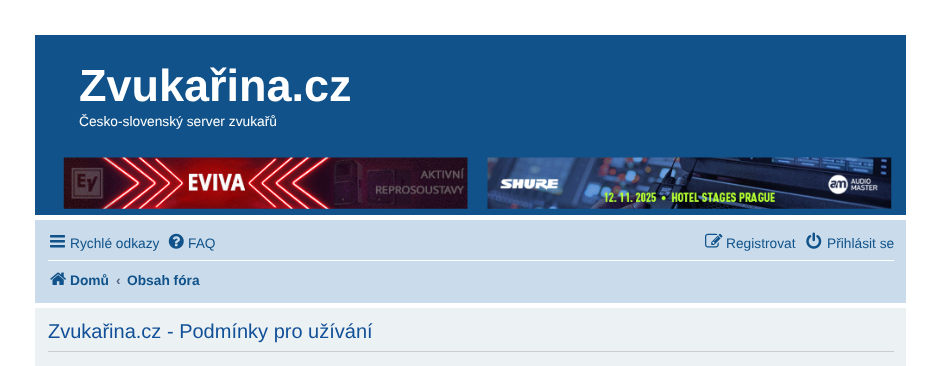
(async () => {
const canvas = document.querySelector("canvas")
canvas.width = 941
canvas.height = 366
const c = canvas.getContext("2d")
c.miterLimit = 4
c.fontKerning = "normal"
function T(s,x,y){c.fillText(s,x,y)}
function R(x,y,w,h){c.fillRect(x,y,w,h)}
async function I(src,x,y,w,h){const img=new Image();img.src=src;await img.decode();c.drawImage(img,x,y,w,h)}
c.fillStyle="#fff"
R(0,0,941,366)
c.fillStyle="#105289"
R(35,35,871,180)
c.font="bold 45px Liberation Sans"
c.fillStyle="#fff"
T("Zvukařina.cz",79,101)
c.font="13.75px Liberation Sans"
T("Česko-slovenský server zvukařů",79,126)
await I("1.png",63,157,405,52)
await I("2.png",487,157,405,52)
c.fillStyle="#cadceb"
R(35,220,871,83)
await I("3.png",50,235,15,13)
c.fillStyle="#105289"
T("Rychlé odkazy",70,248)
await I("4.png",168,233,16,16)
T("FAQ",188,248)
await I("5.png",705,233,18,15)
T("Registrovat",726,248)
await I("6.png",806,232,16,17)
T("Přihlásit se",827,248)
c.fillStyle="#fff"
R(48,260,846,1)
await I("7.png",50,272,16,13)
c.font="bold 13.75px Liberation Sans"
c.fillStyle="#105289"
T("Domů",70,285)
c.fillStyle="#536482"
T("‹",116,285)
c.fillStyle="#105289"
T("Obsah fóra",127,285)
c.fillStyle="#ecf1f3"
R(35,308,871,58)
c.fillStyle="#ccc"
R(48,351,846,1)
c.font="20px Liberation Sans"
c.fillStyle="#115098"
T("Zvukařina.cz - Podmínky pro užívání",48,338)
})()
